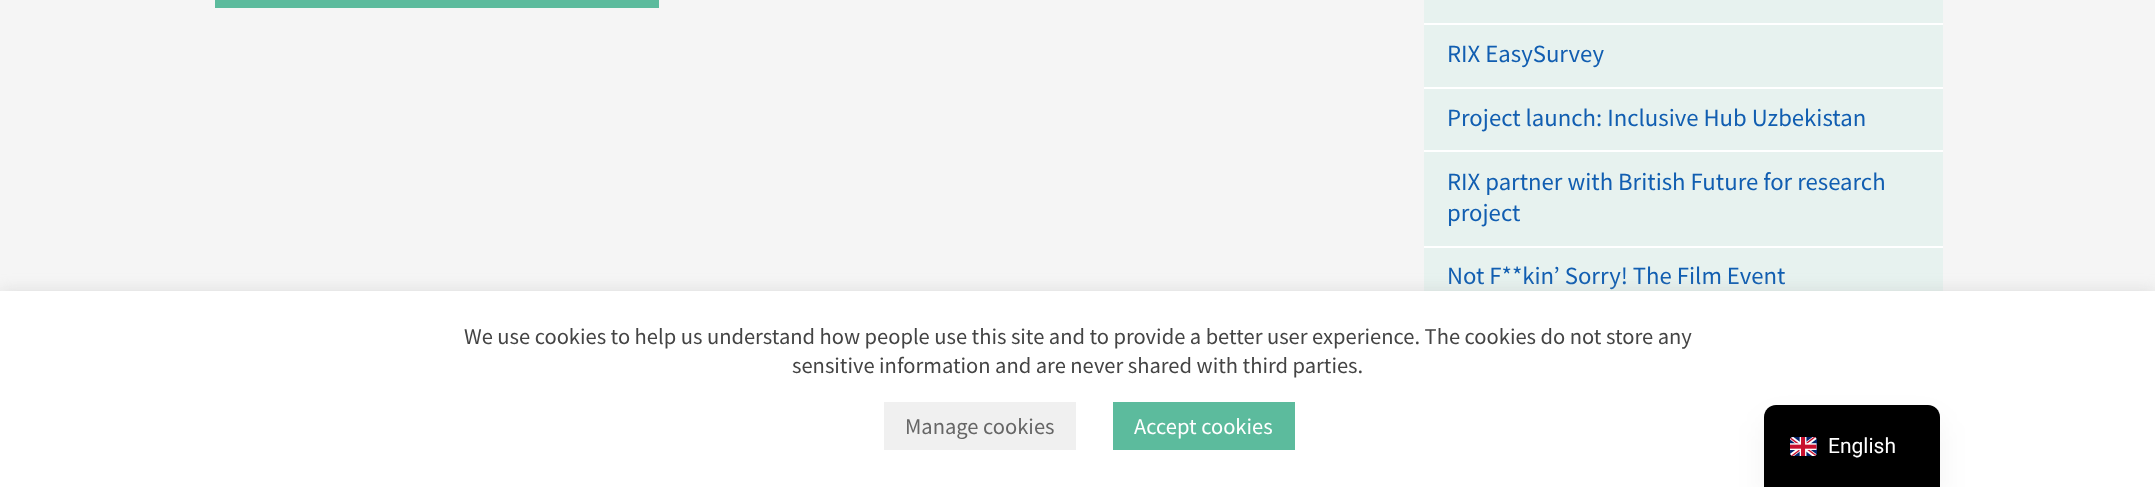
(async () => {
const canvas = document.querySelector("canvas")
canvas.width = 2155
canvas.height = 487
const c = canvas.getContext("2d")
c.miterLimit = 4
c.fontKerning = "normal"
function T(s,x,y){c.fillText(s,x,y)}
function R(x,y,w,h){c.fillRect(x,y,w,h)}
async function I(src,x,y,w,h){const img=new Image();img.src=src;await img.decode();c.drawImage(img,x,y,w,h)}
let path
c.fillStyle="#f5f5f5"
R(0,0,2155,487)
c.fillStyle="#5cbb9d"
R(215,0,444,8)
c.fillStyle="#e7f2ef"
R(1424,0,519,291)
c.fillStyle="#fff"
R(1424,23,519,2)
R(1424,87,519,2)
c.font="24.75px Source Sans Pro"
c.fillStyle="#115eb1"
T("RIX EasySurvey",1447,62)
c.fillStyle="#fff"
R(1424,150,519,2)
c.fillStyle="#115eb1"
T("Project launch: Inclusive Hub Uzbekistan",1447,126)
c.fillStyle="#fff"
R(1424,246,519,2)
c.fillStyle="#115eb1"
T("RIX partner with British Future for research",1447,190)
T("project",1447,221)
T("Not F**kin’ Sorry! The Film Event",1447,284)
c.fillStyle="#acabab4d"
c.filter="blur(7.5px)"
c.beginPath()
c.rect(0,290,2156,196)
c.fill()
c.filter="none"
c.fillStyle="#fff"
R(0,291,2155,196)
c.font="22.5px Source Sans Pro"
c.fillStyle="#444"
T("We use cookies to help us understand how people use this site and to provide a better user experience. The cookies do not store any",464,344)
T("sensitive information and are never shared with third parties.",792,373)
c.fillStyle="#f0f0f0"
R(884,402,192,48)
c.fillStyle="#666"
T("Manage cookies",905,434)
c.fillStyle="#5cbb9d"
R(1113,402,182,48)
c.fillStyle="#fff"
T("Accept cookies",1134,434)
c.fillStyle="#0000000d"
c.filter="blur(15px)"
c.beginPath()
c.roundRect(1764,420,176,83,12)
c.fill()
c.filter="none"
c.fillStyle="#000"
path = new Path2D("M1776 405h152c6.5 0 12 5.5 12 12v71h-176v-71c0-6.5 5.5-12 12-12z")
c.fill(path)
await I("1.png",1790,437,27,19)
c.font="21px Roboto"
c.fillStyle="#fff"
T("English",1828,453)
})()
